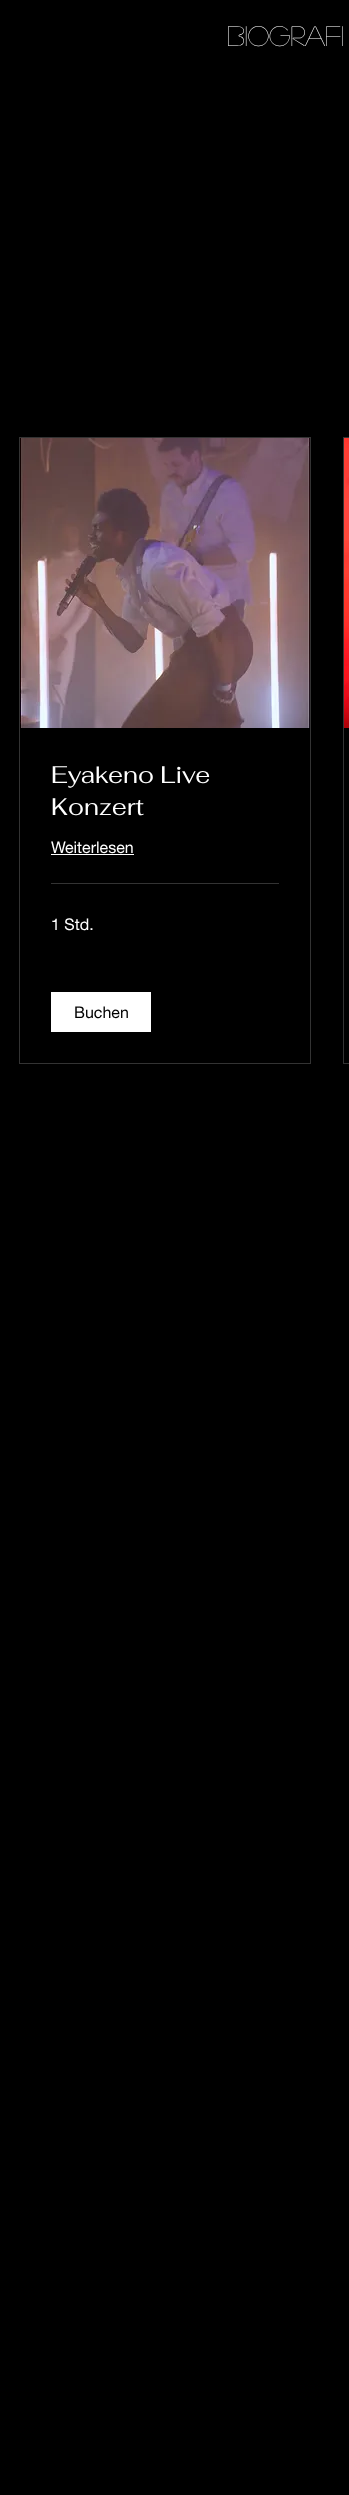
(async () => {
const canvas = document.querySelector("canvas")
canvas.width = 349
canvas.height = 2495
const c = canvas.getContext("2d")
c.miterLimit = 4
c.fontKerning = "normal"
function T(s,x,y){c.fillText(s,x,y)}
function R(x,y,w,h){c.fillRect(x,y,w,h)}
async function I(src,x,y,w,h){const img=new Image();img.src=src;await img.decode();c.drawImage(img,x,y,w,h)}
c.fillStyle="#000"
R(0,0,349,2495)
c.font="28px 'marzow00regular'"
c.fillStyle="#fff"
T("Biografi",227,46)
c.strokeStyle="#333"
c.strokeRect(19.5,437.5,291,626)
await I("1.png",20,438,290,290)
c.font="24px Fahkwang"
T("Eyakeno Live",51,783)
T("Konzert",51,815)
c.font="16px helvetica neue"
T("Weiterlesen",51,853)
R(51,854,83,1)
c.fillStyle="#333"
R(51,883,228,1)
c.fillStyle="#fff"
T("1 Std.",51,930)
R(51,992,100,40)
c.fillStyle="#000"
T("Buchen",74,1018)
c.strokeRect(343.5,437.5,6,626)
await I("2.png",344,438,5,290)
})()
